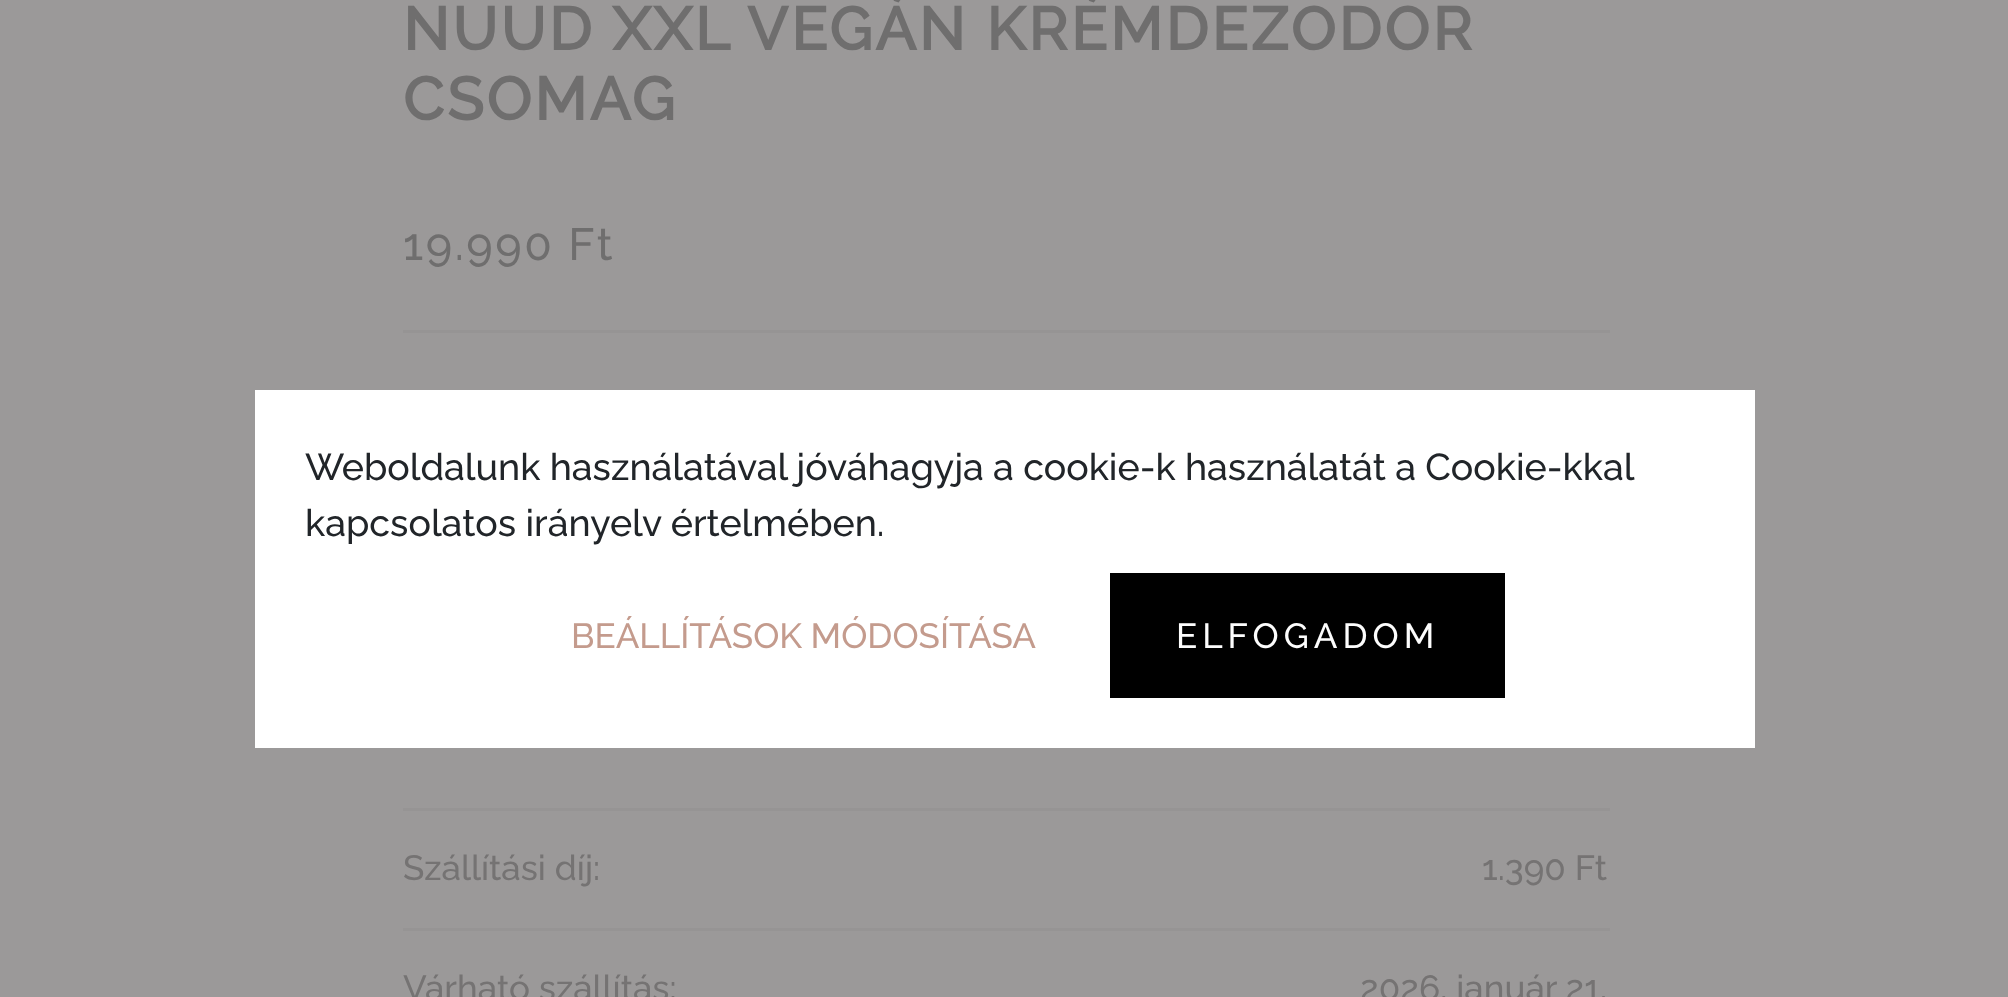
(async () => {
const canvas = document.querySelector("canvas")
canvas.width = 2008
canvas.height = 997
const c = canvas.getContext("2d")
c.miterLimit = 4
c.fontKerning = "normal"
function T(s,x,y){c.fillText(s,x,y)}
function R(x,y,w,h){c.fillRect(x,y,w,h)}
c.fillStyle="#9b9999"
R(0,0,2008,997)
c.letterSpacing="3px"
c.font="bold 60px Raleway"
c.fillStyle="#6f6e6e"
T("NUUD XXL VEGÁN KRÉMDEZODOR",403,50)
T("CSOMAG",403,120)
c.letterSpacing="2.5px"
c.font="100 45px Raleway"
T("19.990 Ft",403,260)
c.fillStyle="#969494"
R(403,330,1207,3)
c.letterSpacing="0px"
c.font="100 35px Raleway"
c.fillStyle="#757373"
T("Szállítási díj:",403,880)
c.fillStyle="#969494"
R(403,808,1207,3)
c.fillStyle="#757373"
T("1.390 Ft",1482,880)
T("Várható szállítás:",403,1000)
c.fillStyle="#969494"
R(403,928,1207,3)
c.fillStyle="#757373"
T("2026. január 21.",1360,1000)
c.fillStyle="#fff"
R(255,390,1500,358)
c.wordSpacing="-0.25px"
c.font="100 37.5px Raleway"
c.fillStyle="#212529"
T("Weboldalunk használatával jóváhagyja a cookie-k használatát a Cookie-kkal",305,480)
c.wordSpacing="0px"
T("kapcsolatos irányelv értelmében.",305,536)
c.font="100 35px Raleway"
c.fillStyle="#c49b8d"
T("BEÁLLÍTÁSOK MÓDOSÍTÁSA",571,648)
c.fillStyle="#000"
R(1110,573,395,125)
c.letterSpacing="5px"
c.fillStyle="#fdfdfd"
T("ELFOGADOM",1176,648)
})()
